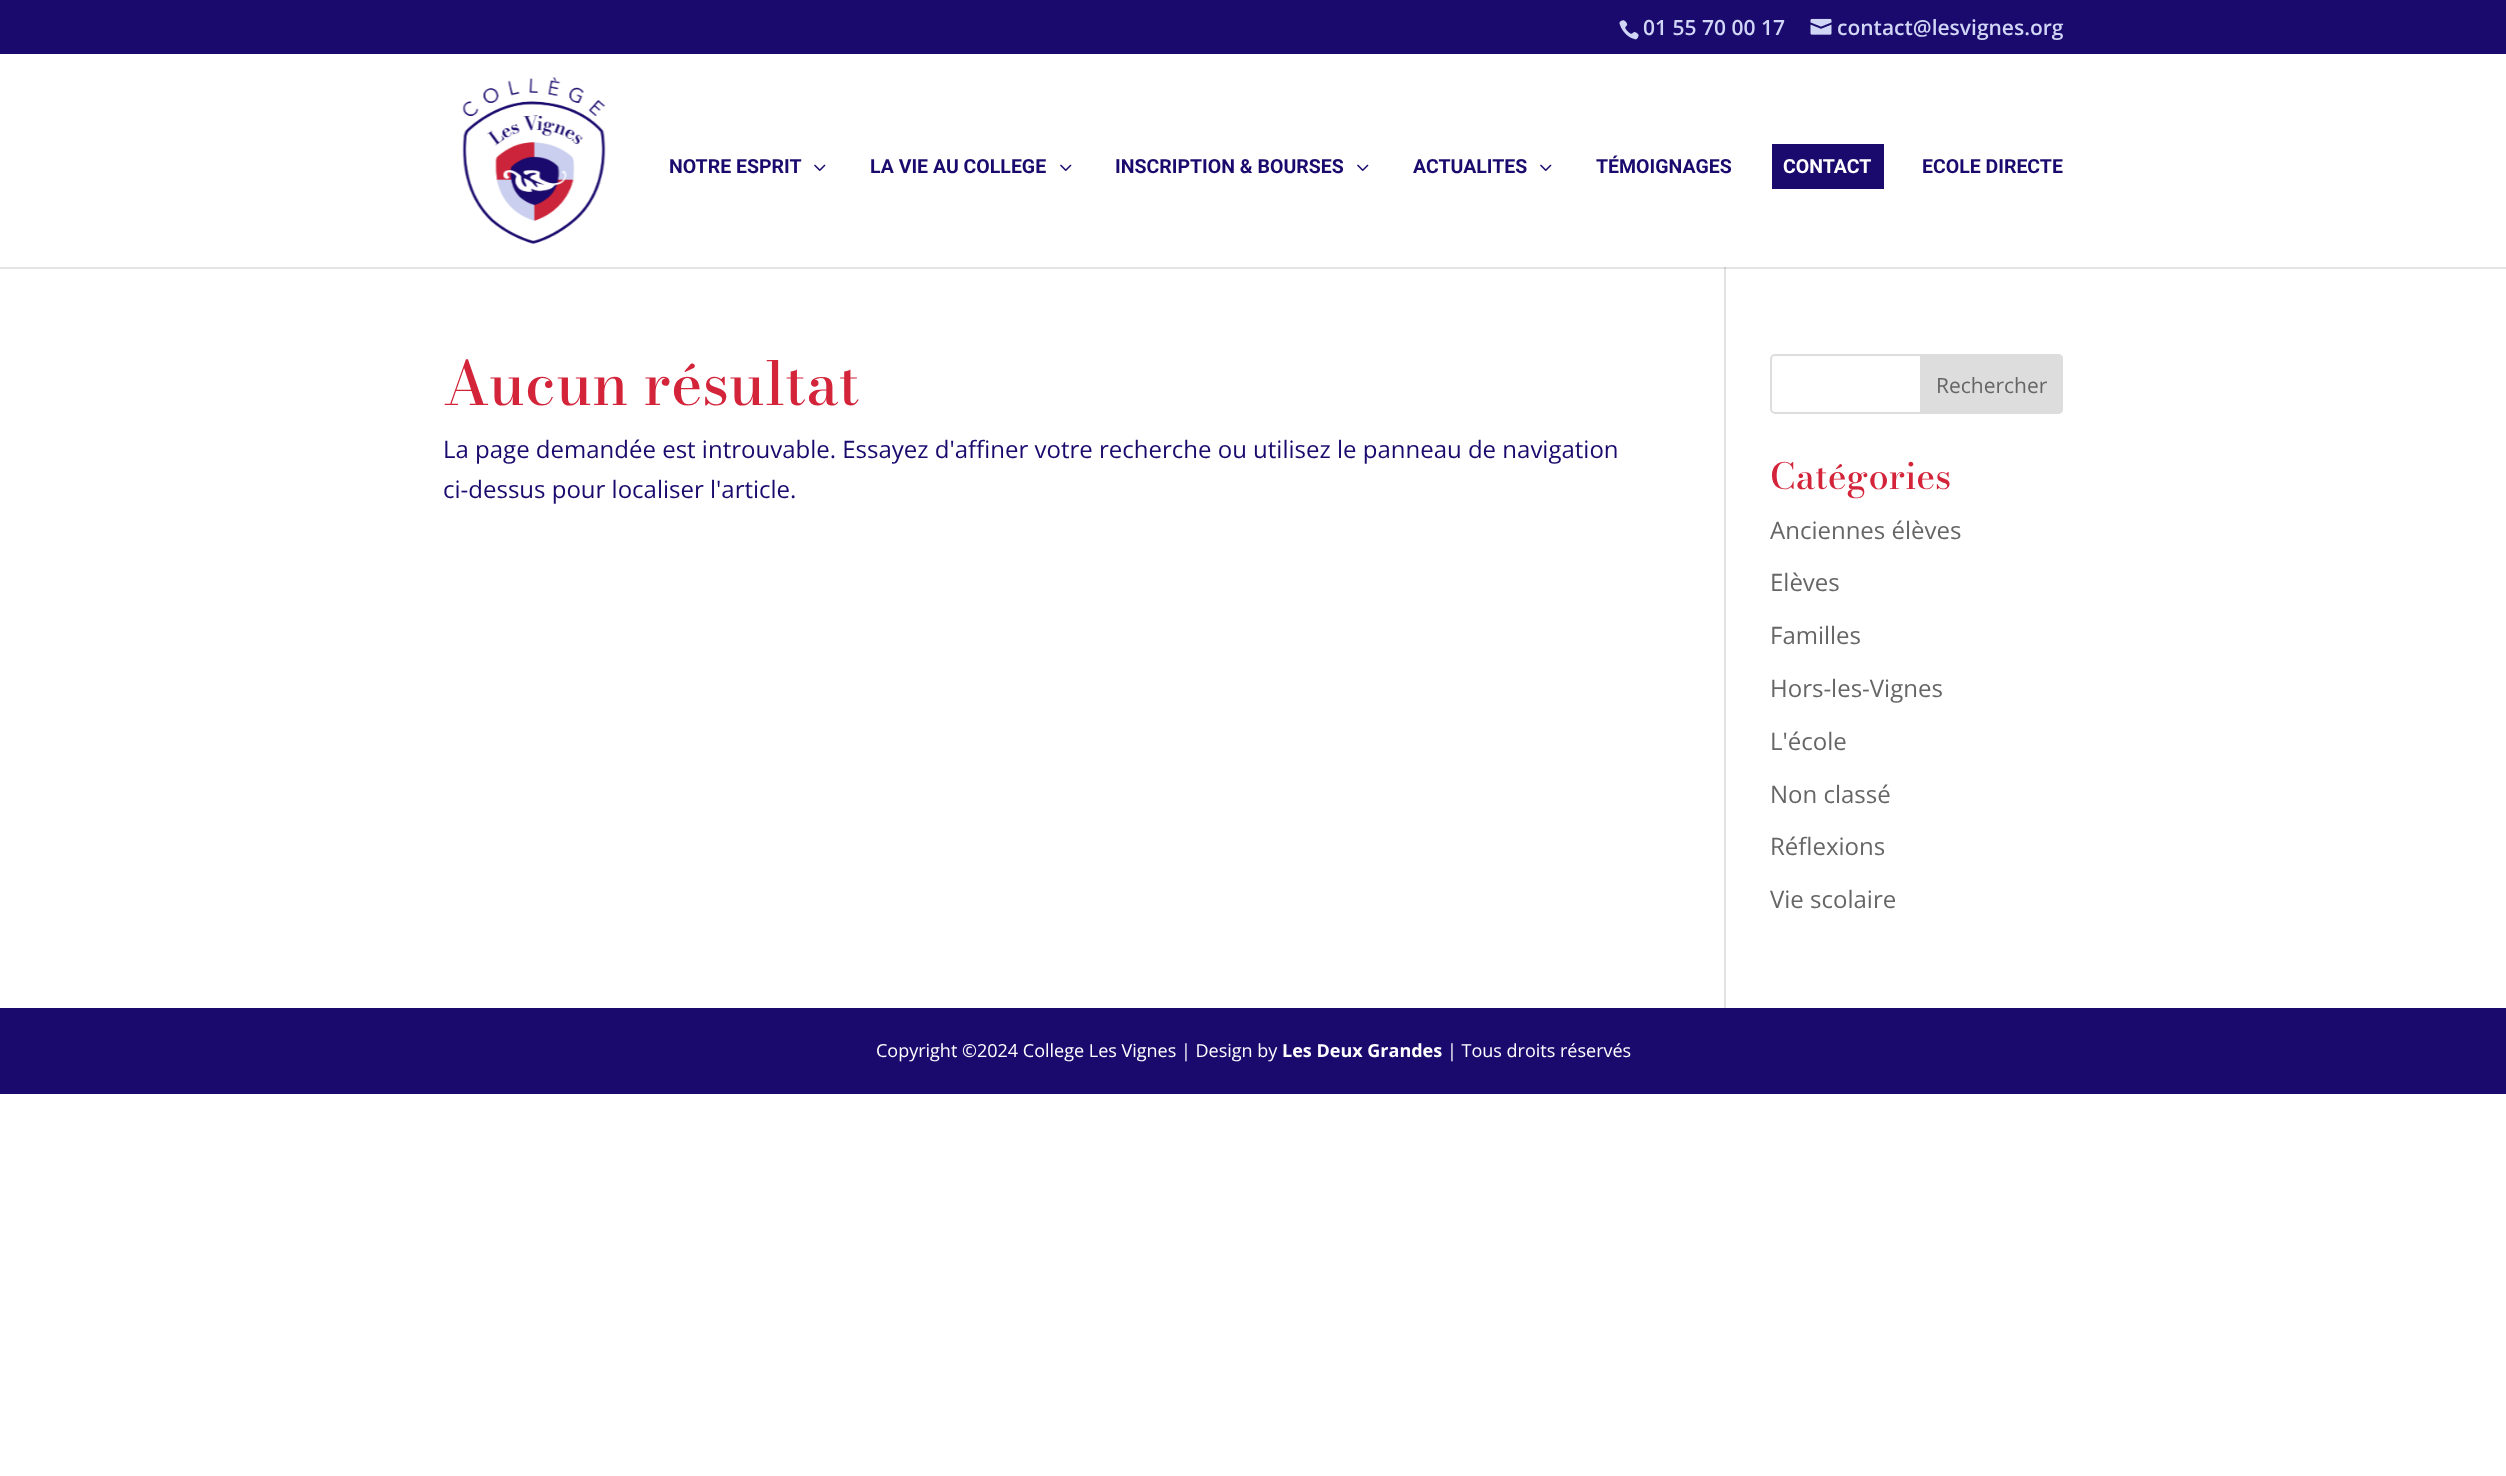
(async () => {
const canvas = document.querySelector("canvas")
canvas.width = 2506
canvas.height = 1476
const c = canvas.getContext("2d")
c.miterLimit = 4
c.fontKerning = "normal"
function T(s,x,y){c.fillText(s,x,y)}
function R(x,y,w,h){c.fillRect(x,y,w,h)}
async function I(src,x,y,w,h){const img=new Image();img.src=src;await img.decode();c.drawImage(img,x,y,w,h)}
let path
c.fillStyle="#fff"
R(0,0,2506,1476)
c.fillStyle="#1b0a6d"
R(0,0,2506,54)
await I("1.png",1619,20,20,20)
c.font="600 21px Open Sans"
c.fillStyle="#d1d6f6"
T("01 55 70 00 17",1643,35)
await I("2.png",1810,18,22,17)
T("contact@lesvignes.org",1837,35)
c.fillStyle="#e2e2e2"
R(1724,267,2,741)
c.fillStyle="#0000001a"
path = new Path2D("M0 267v2h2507v-213h-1v211z")
c.fill(path)
await I("3.png",462,77,144,167)
c.font="bold 19.5px Roboto"
c.fillStyle="#1b0a6d"
T("NOTRE ESPRIT",669,173)
await I("4.png",814,164,12,7)
T("LA VIE AU COLLEGE",870,173)
await I("4.png",1060,164,12,7)
T("INSCRIPTION & BOURSES",1115,173)
await I("4.png",1357,164,12,7)
T("ACTUALITES",1413,173)
await I("4.png",1540,164,12,7)
T("TÉMOIGNAGES",1596,173)
R(1772,144,112,45)
c.fillStyle="#fff"
T("CONTACT",1783,173)
c.fillStyle="#1b0a6d"
T("ECOLE DIRECTE",1922,173)
c.font="500 60px Bodoni Moda"
c.fillStyle="#d3243a"
T("Aucun résultat",443,405)
c.font="24px Open Sans"
c.fillStyle="#1b0a6d"
T("La page demandée est introuvable. Essayez d'affiner votre recherche ou utilisez le panneau de navigation",443,458)
T("ci-dessus pour localiser l'article.",443,498)
c.beginPath()
c.roundRect(1771,355,291,58,4)
c.strokeStyle="#ddd"
c.lineWidth=2
c.stroke()
c.fillStyle="#ddd"
c.beginPath()
c.roundRect(1921,355,141,58,[0,4,4,0])
c.fill()
c.stroke()
c.font="21px Open Sans"
c.fillStyle="#666"
T("Rechercher",1936,393)
c.font="500 36px Bodoni Moda"
c.fillStyle="#d3243a"
T("Catégories",1770,489)
c.font="24px Open Sans"
c.fillStyle="#666"
T("Anciennes élèves",1770,539)
T("Elèves",1770,591)
T("Familles",1770,644)
T("Hors-les-Vignes",1770,697)
T("L'école",1770,750)
T("Non classé",1770,803)
T("Réflexions",1770,855)
T("Vie scolaire",1770,908)
c.fillStyle="#1b0a6d"
R(0,1008,2506,86)
c.font="18px Open Sans"
c.fillStyle="#fff"
T("Copyright ©2024 College Les Vignes | Design by",876,1057)
c.font="bold 18px Open Sans"
T("Les Deux Grandes",1282,1057)
c.font="18px Open Sans"
T("| Tous droits réservés",1447,1057)
})()
